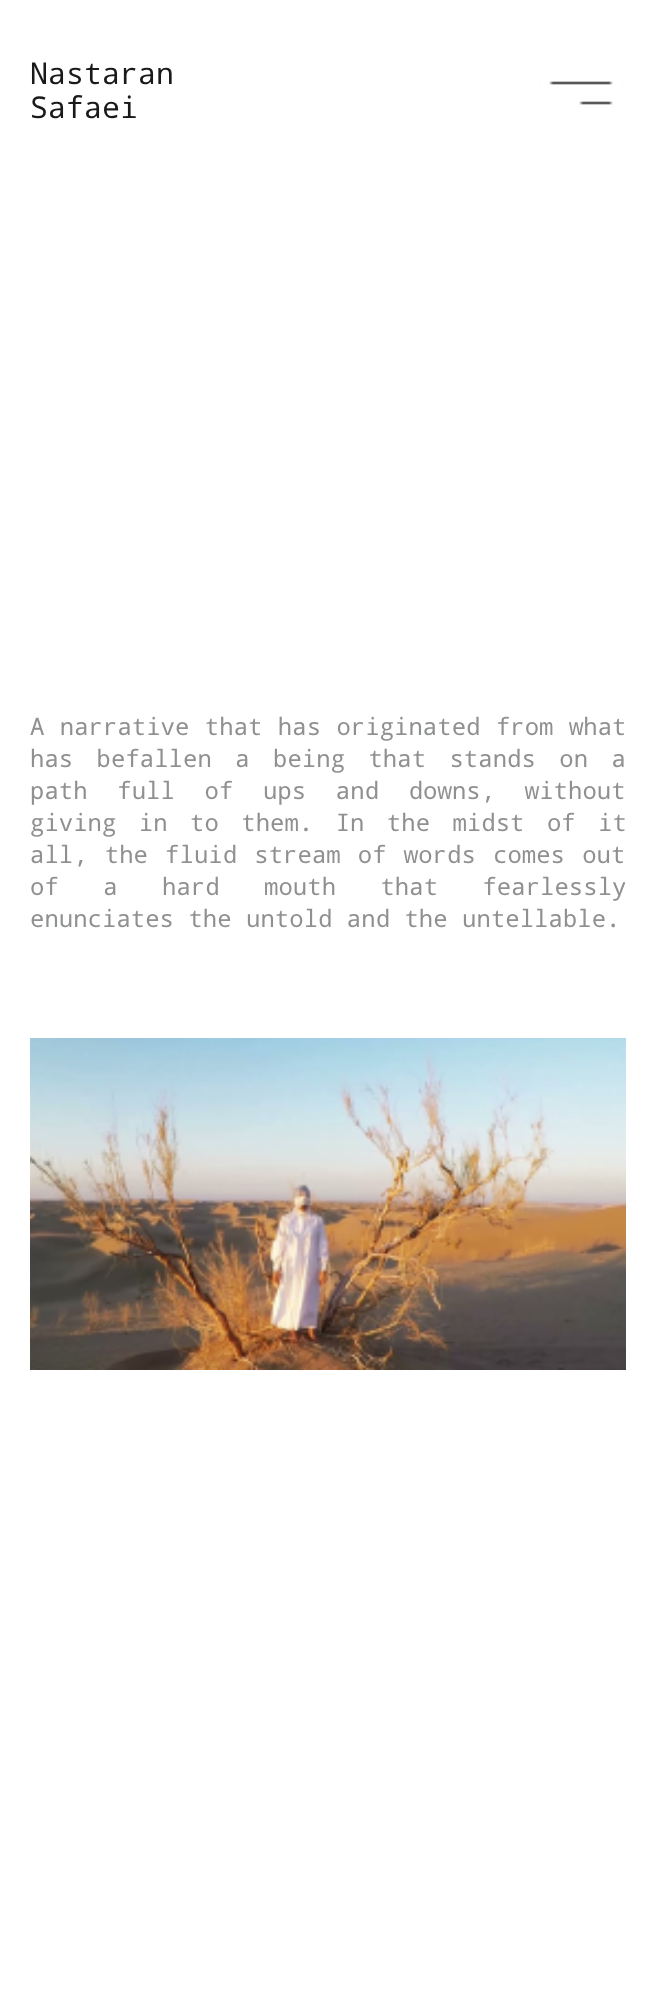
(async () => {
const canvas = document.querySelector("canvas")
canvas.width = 656
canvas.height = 1990
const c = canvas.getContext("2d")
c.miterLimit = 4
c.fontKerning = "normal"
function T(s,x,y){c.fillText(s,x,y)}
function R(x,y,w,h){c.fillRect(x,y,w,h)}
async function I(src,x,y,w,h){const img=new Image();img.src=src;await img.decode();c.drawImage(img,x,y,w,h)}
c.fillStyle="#fff"
R(0,0,656,1990)
c.font="30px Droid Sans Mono"
c.fillStyle="#1a1a1a"
T("Nastaran",30,84)
await I("1.png",506,44,150,100)
T("Safaei",30,118)
c.wordSpacing="1px"
c.font="24px Droid Sans Mono"
c.fillStyle="#8f9090"
T("A narrative that has originated from what",30,735)
c.wordSpacing="9px"
T("has befallen a being that stands on a",30,767)
c.wordSpacing="15.25px"
T("path full of ups and downs, without",30,799)
c.wordSpacing="8px"
T("giving in to them. In the midst of it",30,831)
c.wordSpacing="2.75px"
T("all, the fluid stream of words comes out",30,863)
c.wordSpacing="30px"
T("of a hard mouth that fearlessly",30,895)
c.wordSpacing="0px"
T("enunciates the untold and the untellable.",30,927)
await I("2.png",30,1038,596,332)
})()
